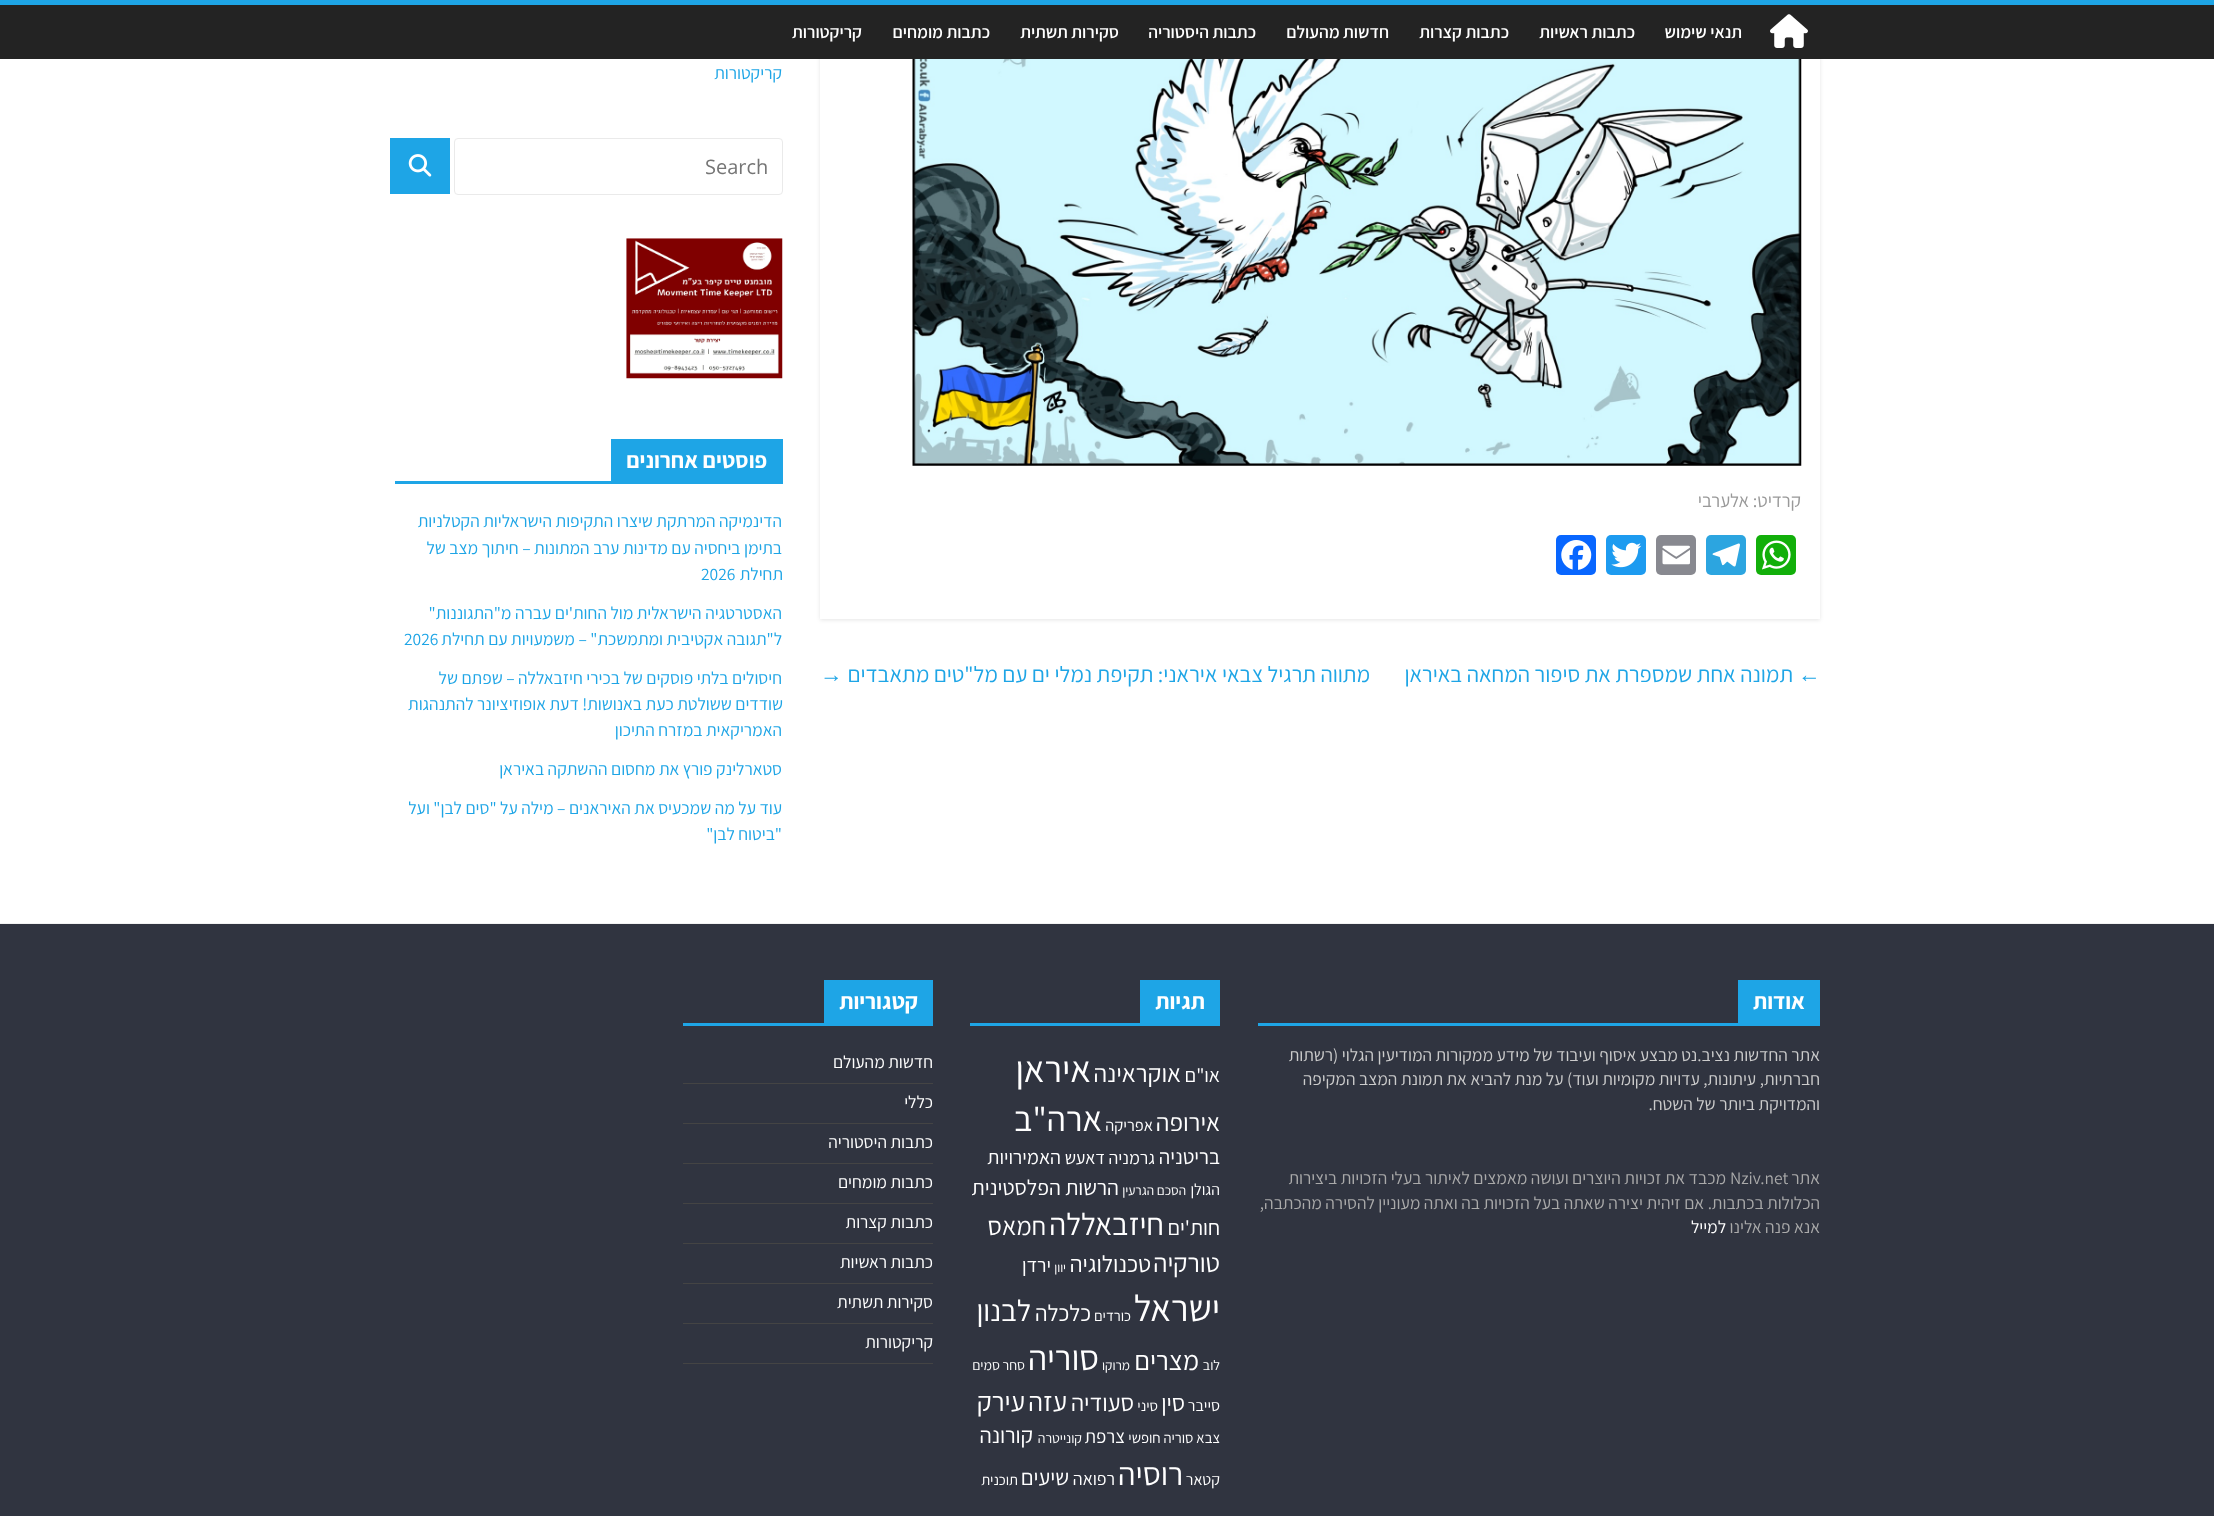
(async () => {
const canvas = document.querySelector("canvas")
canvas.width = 2214
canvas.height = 1516
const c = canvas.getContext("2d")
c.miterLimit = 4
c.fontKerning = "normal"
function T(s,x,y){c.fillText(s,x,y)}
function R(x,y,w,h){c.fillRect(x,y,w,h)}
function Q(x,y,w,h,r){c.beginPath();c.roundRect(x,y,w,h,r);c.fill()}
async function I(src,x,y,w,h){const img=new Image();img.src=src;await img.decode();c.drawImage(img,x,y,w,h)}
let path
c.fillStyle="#fff"
R(0,0,2214,1516)
c.save()
path = new Path2D("M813 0h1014v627h-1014zm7-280h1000v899h-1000z")
c.clip(path,"evenodd")
c.fillStyle="#0000001a"
c.filter="blur(2px)"
c.beginPath()
c.rect(820,-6,1000,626)
c.fill()
c.filter="none"
c.restore()
c.fillStyle="#232323"
R(0,5,2214,54)
c.fillStyle="#1ea5e6"
R(0,0,2214,5)
await I("1.png",1770,14,38,34)
c.direction="rtl"
c.font="600 17.5px Assistant"
c.fillStyle="#fff"
T("תנאי שימוש",1742,38)
T("כתבות ראשיות",1635,38)
T("כתבות קצרות",1509,38)
T("חדשות מהעולם",1389,38)
T("כתבות היסטוריה",1256,38)
T("סקירות תשתית",1119,38)
T("כתבות מומחים",990,38)
T("קריקטורות",862,38)
await I("2.png",912,59,890,407)
c.font="18.75px Assistant"
c.fillStyle="#999"
T("קרדיט: אלערבי",1801,507)
c.fillStyle="#12af0a"
Q(1756,535,40,40,5)
await I("3.png",1762,540,29,30)
c.fillStyle="#2ca5e0"
Q(1706,535,40,40,5)
await I("4.png",1712,543,28,24)
c.fillStyle="#888990"
Q(1656,535,40,40,5)
await I("5.png",1662,545,28,20)
c.fillStyle="#1d9bf0"
Q(1606,535,40,40,5)
await I("6.png",1611,542,31,26)
c.fillStyle="#0866ff"
Q(1556,535,40,40,5)
await I("7.png",1561,540,31,30)
c.direction="ltr"
c.font="22.5px Liberation Serif"
c.fillStyle="#1ea5e6"
T("←",1798,682)
c.direction="rtl"
c.font="22.5px Assistant"
T("תמונה אחת שמספרת את סיפור המחאה באיראן",1793,682)
T("מתווה תרגיל צבאי איראני: תקיפת נמלי ים עם מל\"טים מתאבדים",1370,682)
c.direction="ltr"
c.font="22.5px Liberation Serif"
T("→",820,682)
c.direction="rtl"
c.font="17.5px Assistant"
T("קריקטורות",782,79)
c.beginPath()
c.roundRect(454.5,138.5,328,56,3.5)
c.strokeStyle="#eaeaea"
c.stroke()
c.direction="ltr"
c.font="20px Open Sans"
c.fillStyle="#757575"
T("Search",705,174)
c.fillStyle="#1ea5e6"
R(390,138,60,56)
await I("8.png",408,154,24,23)
await I("9.png",626,238,157,141)
R(395,481,388,3)
R(611,439,172,42)
c.direction="rtl"
c.font="bold 22.5px Assistant"
c.fillStyle="#fff"
T("פוסטים אחרונים",767,468)
c.font="17.5px Assistant"
c.fillStyle="#1ea5e6"
T("הדינמיקה המרתקת שיצרו התקיפות הישראליות הקטלניות",782,527)
T("בתימן ביחסיה עם מדינות ערב המתונות – חיתוך מצב של",782,554)
T("תחילת",783,580)
c.direction="ltr"
T("2026",701,580)
c.direction="rtl"
T("האסטרטגיה הישראלית מול החות'ים עברה מ\"התגוננות\"",782,619)
T("ל\"תגובה אקטיבית ומתמשכת\" – משמעויות עם תחילת",782,645)
c.direction="ltr"
T("2026",404,645)
c.direction="rtl"
T("חיסולים בלתי פוסקים של בכירי חיזבאללה – שפתם של",782,684)
T("שודדים ששולטת כעת באנושות! דעת אופוזיציונר להתנהגות",783,710)
T("האמריקאית במזרח התיכון",782,736)
T("סטארלינק פורץ את מחסום ההשתקה באיראן",782,775)
T("עוד על מה שמכעיס את האיראנים – מילה על \"סים לבן\" ועל",782,814)
T("\"ביטוח לבן\"",782,840)
c.fillStyle="#303440"
R(0,924,2214,592)
c.fillStyle="#f2f2f2"
R(0,923,2214,1)
c.fillStyle="#1ea5e6"
R(1258,1023,562,3)
R(1738,980,82,43)
c.font="bold 22.5px Assistant"
c.fillStyle="#fff"
T("אודות",1805,1009)
c.font="17.5px Assistant"
c.fillStyle="#ccc"
T("אתר החדשות נציב.נט מבצע איסוף ועיבוד של מידע ממקורות המודיעין הגלוי (רשתות",1820,1061)
T("חברתיות, עיתונות, עדויות מקומיות ועוד) על מנת להביא את תמונת המצב המקיפה",1820,1085)
T("והמדויקת ביותר של השטח.",1820,1110)
c.fillStyle="#aaa"
T("אתר",1820,1184)
c.direction="ltr"
T("Nziv.net",1730,1184)
c.direction="rtl"
T("מכבד את זכויות היוצרים ועושה מאמצים לאיתור בעלי הזכויות ביצירות",1726,1184)
T("הכלולות בכתבות. אם זיהית יצירה שאתה בעל הזכויות בה ואתה מעוניין להסירה מהכתבה,",1820,1209)
T("אנא פנה אלינו",1820,1233)
c.fillStyle="#fff"
T("למייל",1726,1233)
c.fillStyle="#1ea5e6"
R(970,1023,250,3)
R(1140,980,80,43)
c.font="bold 22.5px Assistant"
c.fillStyle="#fff"
T("תגיות",1205,1009)
c.font="20px Assistant"
T("או\"ם",1220,1082)
c.font="25px Assistant"
T("אוקראינה",1181,1082)
c.font="37px Assistant"
T("איראן",1091,1082)
c.font="25px Assistant"
T("אירופה",1220,1131)
c.font="16.5px Assistant"
T("אפריקה",1153,1131)
c.font="35px Assistant"
T("ארה\"ב",1102,1131)
c.font="21px Assistant"
T("בריטניה",1220,1164)
c.font="18px Assistant"
T("גרמניה",1155,1164)
T("דאעש",1105,1164)
c.font="20px Assistant"
T("האמירויות",1061,1164)
c.font="16px Assistant"
T("הגולן",1220,1195)
c.font="13.5px Assistant"
T("הסכם הגרעין",1186,1195)
c.font="21.75px Assistant"
T("הרשות הפלסטינית",1119,1195)
c.font="21.5px Assistant"
T("חות'ים",1220,1235)
c.font="31px Assistant"
T("חיזבאללה",1164,1235)
c.font="25.5px Assistant"
T("חמאס",1046,1235)
c.font="26px Assistant"
T("טורקיה",1220,1272)
c.font="23.5px Assistant"
T("טכנולוגיה",1151,1272)
c.font="13px Assistant"
T("יוון",1066,1272)
c.font="20px Assistant"
T("ירדן",1051,1272)
c.font="37px Assistant"
T("ישראל",1220,1321)
c.font="14.75px Assistant"
T("כורדים",1131,1321)
c.font="23px Assistant"
T("כלכלה",1091,1321)
c.font="30px Assistant"
T("לבנון",1031,1321)
c.font="14px Assistant"
T("לוב",1220,1370)
c.font="27px Assistant"
T("מצרים",1199,1370)
c.font="13.5px Assistant"
T("מרוקו",1130,1370)
c.font="35px Assistant"
T("סוריה",1099,1370)
c.font="14px Assistant"
T("סחר סמים",1025,1370)
c.font="16px Assistant"
T("סייבר",1220,1411)
c.font="23.5px Assistant"
T("סין",1185,1411)
c.font="15px Assistant"
T("סיני",1158,1411)
c.font="24px Assistant"
T("סעודיה",1134,1411)
c.font="27px Assistant"
T("עזה",1067,1411)
T("עירק",1025,1411)
c.font="14.75px Assistant"
T("צבא סוריה חופשי",1220,1443)
c.font="19px Assistant"
T("צרפת",1125,1443)
c.font="14px Assistant"
T("קונייטרה",1082,1443)
c.font="22.5px Assistant"
T("קורונה",1033,1443)
c.font="16px Assistant"
T("קטאר",1220,1485)
c.font="32px Assistant"
T("רוסיה",1183,1485)
c.font="18px Assistant"
T("רפואה",1115,1485)
c.font="22px Assistant"
T("שיעים",1069,1485)
c.font="14.75px Assistant"
T("תוכנית",1018,1485)
c.fillStyle="#1ea5e6"
R(683,1023,250,3)
R(824,980,109,43)
c.font="bold 22.5px Assistant"
c.fillStyle="#fff"
T("קטגוריות",918,1009)
c.fillStyle="#444"
R(683,1083,250,1)
c.font="17.5px Assistant"
c.fillStyle="#fff"
T("חדשות מהעולם",933,1068)
c.fillStyle="#444"
R(683,1123,250,1)
c.fillStyle="#fff"
T("כללי",933,1108)
c.fillStyle="#444"
R(683,1163,250,1)
c.fillStyle="#fff"
T("כתבות היסטוריה",933,1148)
c.fillStyle="#444"
R(683,1203,250,1)
c.fillStyle="#fff"
T("כתבות מומחים",933,1188)
c.fillStyle="#444"
R(683,1243,250,1)
c.fillStyle="#fff"
T("כתבות קצרות",933,1228)
c.fillStyle="#444"
R(683,1283,250,1)
c.fillStyle="#fff"
T("כתבות ראשיות",933,1268)
c.fillStyle="#444"
R(683,1323,250,1)
c.fillStyle="#fff"
T("סקירות תשתית",933,1308)
c.fillStyle="#444"
R(683,1363,250,1)
c.fillStyle="#fff"
T("קריקטורות",933,1348)
})()
